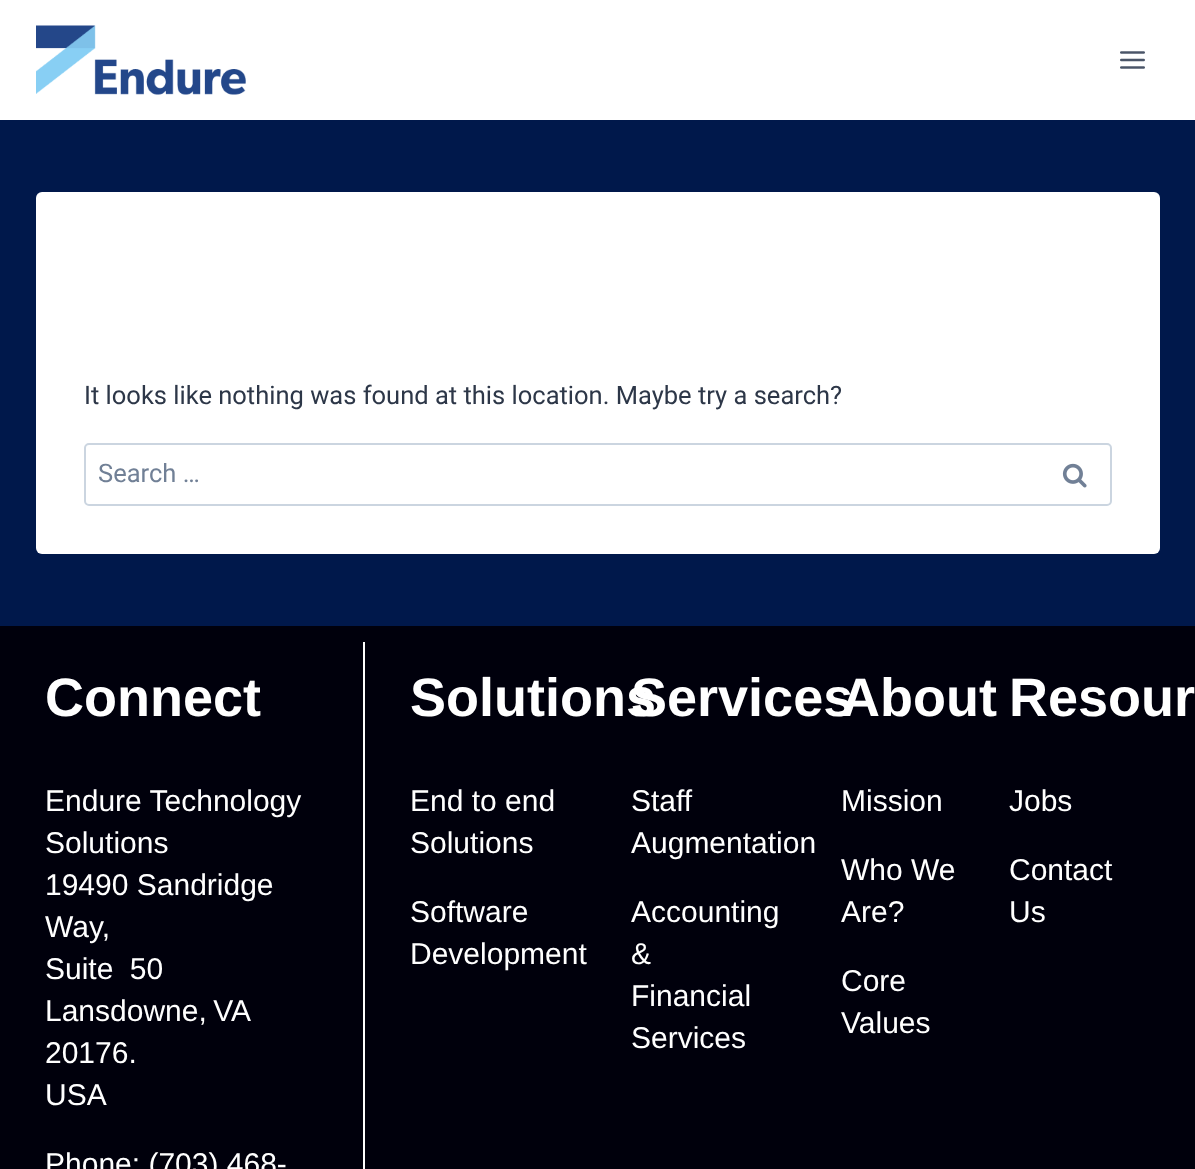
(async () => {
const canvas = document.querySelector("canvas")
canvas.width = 1195
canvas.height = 1169
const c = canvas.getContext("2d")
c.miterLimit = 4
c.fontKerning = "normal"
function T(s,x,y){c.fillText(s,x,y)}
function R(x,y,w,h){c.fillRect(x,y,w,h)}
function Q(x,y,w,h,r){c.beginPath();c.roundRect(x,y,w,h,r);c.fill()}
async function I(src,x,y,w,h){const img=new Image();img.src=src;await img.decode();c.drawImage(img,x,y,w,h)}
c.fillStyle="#00184b"
R(0,0,1195,1169)
c.fillStyle="#fff"
R(0,0,1195,120)
await I("1.png",36,25,210,70)
await I("2.png",1120,51,25,18)
Q(36,192,1124,362,6)
c.font="25.5px Roboto"
c.fillStyle="#2d3748"
T("It looks like nothing was found at this location. Maybe try a search?",84,404)
c.beginPath()
c.roundRect(85,444,1026,61,4)
c.strokeStyle="#cbd5e0"
c.lineWidth=2
c.stroke()
c.fillStyle="#718096"
T("Search …",98,482)
await I("3.png",1062,463,25,25)
c.fillStyle="#00000c"
R(0,626,1195,543)
c.fillStyle="#fff"
R(363,642,2,527)
c.font="bold 54px Liberation Sans"
T("Connect",45,716)
c.font="30px Liberation Sans"
T("Endure Technology",45,811)
T("Solutions",45,853)
T("19490 Sandridge",45,895)
T("Way,",45,937)
c.wordSpacing="8px"
T("Suite 50",45,979)
c.wordSpacing="-2px"
T("Lansdowne, VA",45,1021)
c.wordSpacing="0px"
T("20176.",45,1063)
T("USA",45,1105)
T("Phone: (703) 468-",45,1174)
c.font="bold 54px Liberation Sans"
T("Solutions",410,716)
c.font="30px Liberation Sans"
T("End to end",410,811)
T("Solutions",410,853)
T("Software",410,922)
T("Development",410,964)
c.font="bold 54px Liberation Sans"
T("Services",631,716)
c.font="30px Liberation Sans"
T("Staff",631,811)
T("Augmentation",631,853)
T("Accounting",631,922)
T("&",631,964)
T("Financial",631,1006)
T("Services",631,1048)
c.font="bold 54px Liberation Sans"
T("About",841,716)
c.font="30px Liberation Sans"
T("Mission",841,811)
T("Who We",841,880)
T("Are?",841,922)
T("Core",841,991)
T("Values",841,1033)
c.font="bold 54px Liberation Sans"
T("Resour",1009,716)
c.font="30px Liberation Sans"
T("Jobs",1009,811)
T("Contact",1009,880)
T("Us",1009,922)
})()
